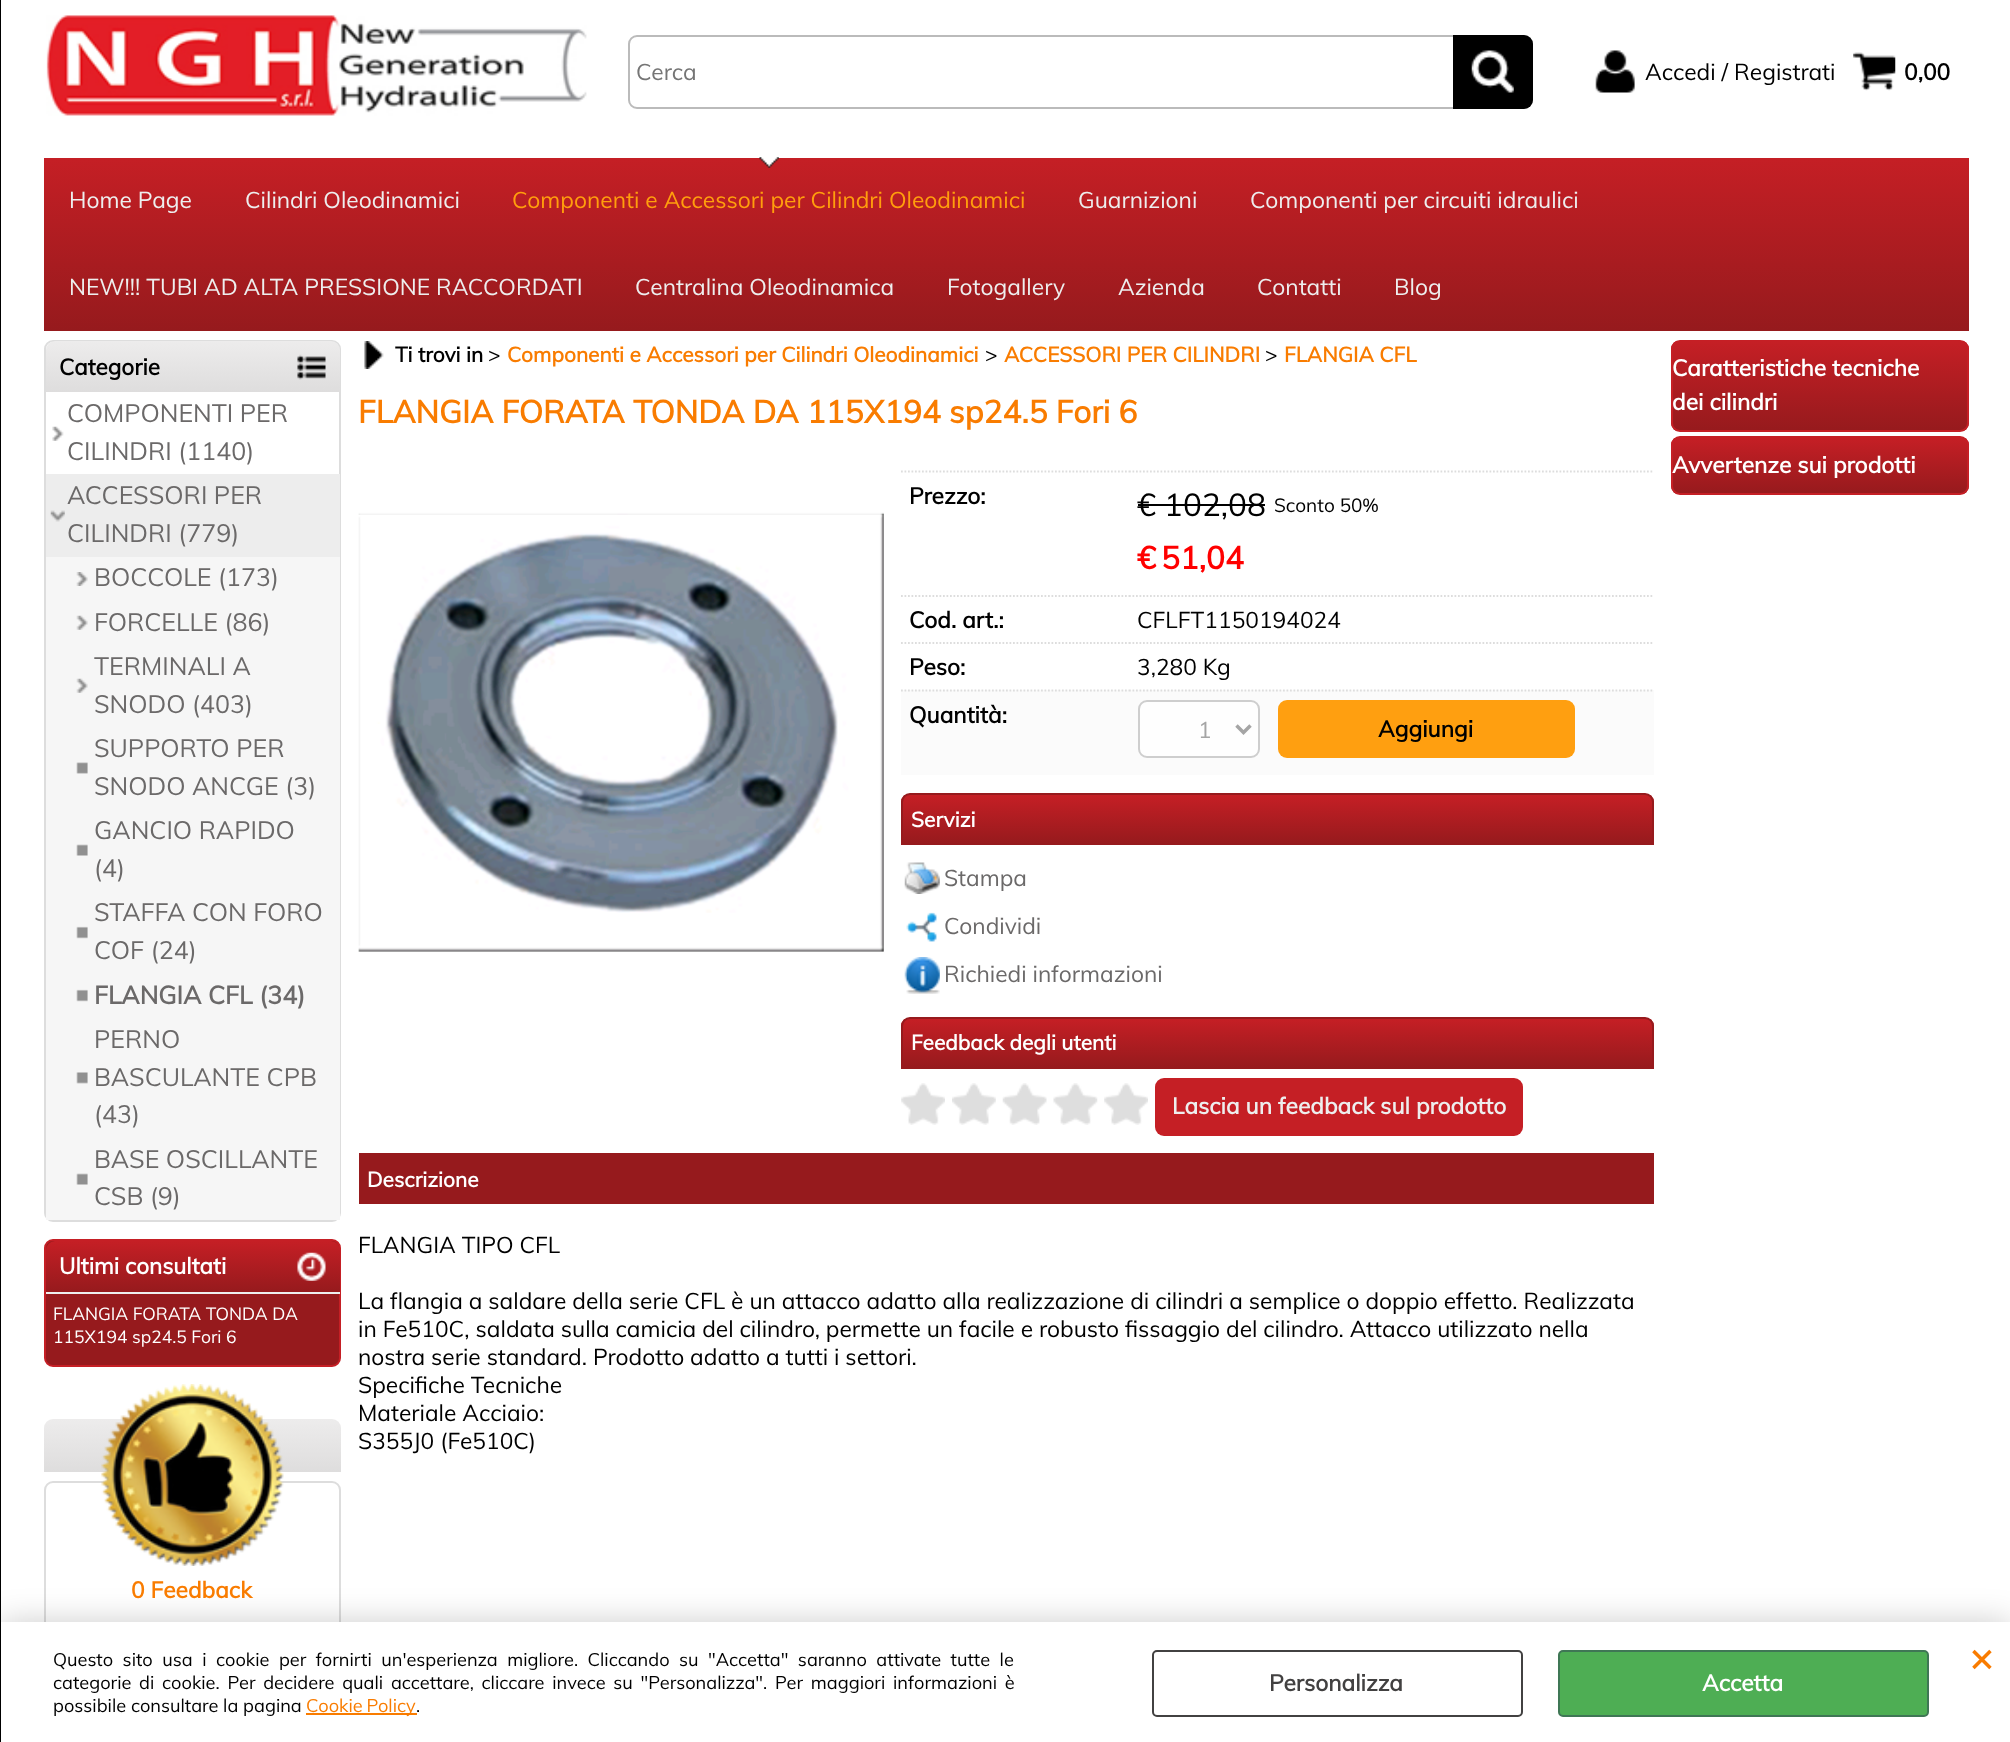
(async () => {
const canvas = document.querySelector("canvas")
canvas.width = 2010
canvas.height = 1742
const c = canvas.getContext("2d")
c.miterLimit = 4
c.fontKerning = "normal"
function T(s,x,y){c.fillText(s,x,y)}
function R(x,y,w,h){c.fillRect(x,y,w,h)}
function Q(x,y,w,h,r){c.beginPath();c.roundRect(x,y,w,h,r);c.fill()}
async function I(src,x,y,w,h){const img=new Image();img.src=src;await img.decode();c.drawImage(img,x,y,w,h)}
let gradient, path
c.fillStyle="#fff"
R(0,0,2010,1742)
c.beginPath()
c.roundRect(45,1482,295,246,8)
c.strokeStyle="#ddd"
c.lineWidth=2
c.stroke()
c.fillStyle="#00000033"
c.filter="blur(16px)"
c.beginPath()
c.rect(0,1622,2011,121)
c.fill()
c.filter="none"
c.fillStyle="#000"
R(0,0,1,1742)
await I("1.png",46,15,541,101)
c.beginPath()
c.roundRect(629,36,903,72,8)
c.strokeStyle="#bbb"
c.stroke()
c.font="22.75px Muli"
c.fillStyle="#757575"
T("Cerca",636,80)
c.fillStyle="#000"
c.beginPath()
c.roundRect(1453,35,80,74,[0,9,9,0])
c.fill()
await I("2.png",1471,50,43,43)
await I("3.png",1595,50,40,43)
T("Accedi / Registrati",1645,80)
await I("4.png",1853,52,43,39)
c.font="bold 22.75px Muli"
T("0,00",1904,80)
gradient = c.createLinearGradient(1006,157,1006,331)
gradient.addColorStop(0,"#c51f25")
gradient.addColorStop(1,"#961a1d")
c.fillStyle = gradient
R(44,158,1925,173)
c.font="22.75px Muli"
c.fillStyle="#eee"
T("Home Page",69,208)
T("Cilindri Oleodinamici",245,208)
await I("5.png",759,157,20,11)
c.fillStyle="#ff9e0d"
T("Componenti e Accessori per Cilindri Oleodinamici",512,208)
c.fillStyle="#eee"
T("Guarnizioni",1078,208)
T("Componenti per circuiti idraulici",1250,208)
T("NEW!!! TUBI AD ALTA PRESSIONE RACCORDATI",69,295)
T("Centralina Oleodinamica",635,295)
T("Fotogallery",947,295)
T("Azienda",1118,295)
T("Contatti",1257,295)
T("Blog",1394,295)
c.beginPath()
c.roundRect(45,341,295,880,8)
c.strokeStyle="#ddd"
c.stroke()
gradient = c.createLinearGradient(193,341,193,392)
gradient.addColorStop(0,"#edecec")
gradient.addColorStop(1,"#dedddd")
c.fillStyle = gradient
c.beginPath()
c.roundRect(46,341,294,51,[9,9,0,0])
c.fill()
await I("6.png",297,354,29,26)
c.font="bold 22.5px Muli"
c.fillStyle="#000"
T("Categorie",59,375)
await I("7.png",52,426,12,15)
c.font="25px Muli"
c.fillStyle="#6b6969"
T("COMPONENTI PER",67,422)
T("CILINDRI (1140)",67,460)
c.fillStyle="#ededed"
R(46,474,294,83)
await I("8.png",50,510,15,12)
c.fillStyle="#6b6969"
T("ACCESSORI PER",67,504)
T("CILINDRI (779)",67,542)
c.fillStyle="#f6f6f6"
R(46,557,294,663)
await I("9.png",76,572,12,14)
c.fillStyle="#6b6969"
T("BOCCOLE (173)",94,586)
await I("10.png",76,615,12,15)
T("FORCELLE (86)",94,631)
await I("10.png",76,678,12,15)
T("TERMINALI A",94,675)
T("SNODO (403)",94,713)
await I("11.png",76,762,12,12)
T("SUPPORTO PER",94,757)
T("SNODO ANCGE (3)",94,795)
await I("12.png",76,844,12,12)
T("GANCIO RAPIDO",94,839)
T("(4)",94,877)
await I("13.png",76,926,12,13)
T("STAFFA CON FORO",94,921)
T("COF (24)",94,959)
await I("13.png",76,989,12,13)
c.font="bold 25px Muli"
T("FLANGIA CFL (34)",94,1004)
await I("14.png",76,1072,12,12)
c.font="25px Muli"
T("PERNO",94,1048)
T("BASCULANTE CPB",94,1086)
T("(43)",94,1123)
await I("12.png",76,1173,12,12)
T("BASE OSCILLANTE",94,1168)
T("CSB (9)",94,1205)
c.fillStyle="#961a1d"
c.beginPath()
c.roundRect(45,1240,295,126,8)
c.fill()
c.strokeStyle="#c51f25"
c.stroke()
gradient = c.createLinearGradient(193,1241,193,1292)
gradient.addColorStop(0,"#c51f25")
gradient.addColorStop(1,"#961a1d")
c.fillStyle = gradient
c.beginPath()
c.roundRect(46,1241,294,51,[9,9,0,0])
c.fill()
await I("15.png",297,1252,29,29)
c.font="bold 22.5px Muli"
c.fillStyle="#fff"
T("Ultimi consultati",59,1274)
c.fillStyle="#eee"
R(46,1292,294,2)
c.font="17.5px Muli"
c.fillStyle="#fff"
T("FLANGIA FORATA TONDA DA",53,1320)
T("115X194 sp24.5 Fori 6",53,1343)
gradient = c.createLinearGradient(193,1419,193,1472)
gradient.addColorStop(0,"#edecec")
gradient.addColorStop(1,"#dedddd")
c.fillStyle = gradient
c.beginPath()
c.roundRect(44,1419,297,53,[9,9,0,0])
c.fill()
await I("16.png",101,1384,183,182)
c.font="bold 22.75px Muli"
c.fillStyle="#f97c00"
T("0 Feedback",131,1598)
await I("17.png",364,341,20,28)
c.font="bold 20.9px Muli"
c.fillStyle="#000"
T("Ti trovi in",395,362)
c.font="20.9px Muli"
T(">",488,362)
c.font="bold 20.9px Muli"
c.fillStyle="#f97c00"
T("Componenti e Accessori per Cilindri Oleodinamici",507,362)
c.font="20.9px Muli"
c.fillStyle="#000"
T(">",985,362)
c.font="bold 20.9px Muli"
c.fillStyle="#f97c00"
T("ACCESSORI PER CILINDRI",1004,362)
c.font="20.9px Muli"
c.fillStyle="#000"
T(">",1265,362)
c.font="bold 20.9px Muli"
c.fillStyle="#f97c00"
T("FLANGIA CFL",1284,362)
c.font="bold 31.5px Muli"
T("FLANGIA FORATA TONDA DA 115X194 sp24.5 Fori 6",358,423)
await I("18.png",358,512,526,440)
path = new Path2D("M901 471.5h228")
c.strokeStyle="#ddd"
c.lineWidth=1.8
c.setLineDash([1.75,1.75])
c.stroke(path)
c.font="bold 22.75px Muli"
c.fillStyle="#000"
T("Prezzo:",909,504)
path = new Path2D("M1129 471.5h525")
c.stroke(path)
c.font="31.5px Muli"
T("€ 102,08",1137,516)
R(1138,504,127,2)
c.font="19px Muli"
T("Sconto 50%",1274,512)
c.font="bold 31.5px Muli"
c.fillStyle="#f00"
T("€",1137,569)
T("51,04",1161,569)
path = new Path2D("M901 596h228")
c.stroke(path)
c.font="bold 22.75px Muli"
c.fillStyle="#000"
T("Cod. art.:",909,628)
path = new Path2D("M1129 596h525")
c.stroke(path)
c.font="22.75px Muli"
T("CFLFT1150194024",1137,628)
path = new Path2D("M901 643h228")
c.stroke(path)
c.font="bold 22.75px Muli"
T("Peso:",909,675)
path = new Path2D("M1129 643h525")
c.stroke(path)
c.font="22.75px Muli"
T("3,280 Kg",1137,675)
c.fillStyle="#fbfbfb"
R(901,690,753,85)
path = new Path2D("M901 690.5h228")
c.stroke(path)
c.font="bold 22.75px Muli"
c.fillStyle="#000"
T("Quantità:",909,723)
path = new Path2D("M1129 690.5h525")
c.stroke(path)
c.fillStyle="#fefefe"
c.beginPath()
c.roundRect(1139,701,120,56,8)
c.fill()
c.strokeStyle="#cecece"
c.lineWidth=2
c.setLineDash([])
c.stroke()
path = new Path2D("M1236.5 725.5l7 7l7-7")
c.strokeStyle="#a5a5a5"
c.lineWidth=3.5
c.stroke(path)
c.font="22.75px Muli"
c.fillStyle="#a5a5a5"
T("1",1198,738)
c.fillStyle="#ff9f10"
Q(1278,700,297,58,9)
c.font="bold 22.75px Muli"
c.fillStyle="#000"
T("Aggiungi",1378,737)
c.save()
c.beginPath()
c.roundRect(901,793,753,52,[9,9,0,0])
c.clip()
gradient = c.createLinearGradient(1278,795,1278,844)
gradient.addColorStop(0,"#c51f25")
gradient.addColorStop(1,"#961a1d")
c.fillStyle = gradient
R(901,795,753,48)
c.restore()
c.beginPath()
c.roundRect(902,794,751,50,[8,8,0,0])
c.strokeStyle="#961a1d"
c.lineWidth=2
c.stroke()
c.font="bold 20.9px Muli"
c.fillStyle="#fff"
T("Servizi",911,827)
await I("19.png",904,862,36,32)
c.font="22.75px Muli"
c.fillStyle="#6b6969"
T("Stampa",944,886)
await I("20.png",906,912,31,30)
T("Condividi",944,934)
await I("21.png",904,957,36,37)
T("Richiedi informazioni",944,982)
c.save()
c.beginPath()
c.roundRect(901,1017,753,52,[9,9,0,0])
c.clip()
gradient = c.createLinearGradient(1278,1019,1278,1068)
gradient.addColorStop(0,"#c51f25")
gradient.addColorStop(1,"#961a1d")
c.fillStyle = gradient
R(901,1019,753,48)
c.restore()
c.beginPath()
c.roundRect(902,1018,751,50,[8,8,0,0])
c.stroke()
c.font="bold 20.9px Muli"
c.fillStyle="#fff"
T("Feedback degli utenti",911,1050)
await I("22.png",901,1083,44,42)
await I("23.png",952,1083,44,42)
await I("24.png",1002,1083,45,42)
await I("25.png",1053,1083,45,42)
await I("22.png",1104,1083,44,42)
c.fillStyle="#c51f25"
Q(1155,1078,368,58,9)
c.font="bold 22.75px Muli"
c.fillStyle="#eee"
T("Lascia un feedback sul prodotto",1172,1114)
c.fillStyle="#961a1d"
R(359,1153,1295,51)
c.font="bold 20.9px Muli"
c.fillStyle="#fff"
T("Descrizione",367,1187)
c.font="22.75px Muli"
c.fillStyle="#000"
T("FLANGIA TIPO CFL",358,1253)
T("La flangia a saldare della serie CFL è un attacco adatto alla realizzazione di cilindri a semplice o doppio effetto. Realizzata",358,1309)
T("in Fe510C, saldata sulla camicia del cilindro, permette un facile e robusto fissaggio del cilindro. Attacco utilizzato nella",358,1337)
T("nostra serie standard. Prodotto adatto a tutti i settori.",358,1365)
T("Specifiche Tecniche",358,1393)
T("Materiale Acciaio:",358,1421)
T("S355J0 (Fe510C)",358,1449)
c.save()
c.beginPath()
c.roundRect(1671,340,298,92,9)
c.clip()
gradient = c.createLinearGradient(1820,341,1820,431)
gradient.addColorStop(0,"#c51f25")
gradient.addColorStop(1,"#961a1d")
c.fillStyle = gradient
R(1671,341,298,90)
c.restore()
c.beginPath()
c.roundRect(1672,341,296,90,8)
c.strokeStyle="#c51f25"
c.stroke()
c.font="bold 22.75px Muli"
c.fillStyle="#fff"
T("Caratteristiche tecniche",1672,376)
T("dei cilindri",1672,410)
c.save()
c.beginPath()
c.roundRect(1671,436,298,59,9)
c.clip()
gradient = c.createLinearGradient(1820,438,1820,494)
gradient.addColorStop(0,"#c51f25")
gradient.addColorStop(1,"#961a1d")
c.fillStyle = gradient
R(1671,438,298,56)
c.restore()
c.beginPath()
c.roundRect(1672,437,296,57,8)
c.stroke()
T("Avvertenze sui prodotti",1672,473)
R(1,1622,2009,120)
c.wordSpacing="4.75px"
c.font="18.2px Muli"
c.fillStyle="#000"
T("Questo sito usa i cookie per fornirti un'esperienza migliore. Cliccando su \"Accetta\" saranno attivate tutte le",53,1666)
c.wordSpacing="3px"
T("categorie di cookie. Per decidere quali accettare, cliccare invece su \"Personalizza\". Per maggiori informazioni è",53,1689)
c.wordSpacing="0px"
T("possibile consultare la pagina",53,1712)
c.fillStyle="#f97c00"
R(306,1713,111,2)
c.wordSpacing="-1px"
T("Cookie Policy",306,1712)
c.wordSpacing="0px"
c.fillStyle="#000"
T(".",416,1712)
c.beginPath()
c.roundRect(1153,1651,369,65,4)
c.strokeStyle="#424141"
c.stroke()
c.font="bold 22.75px Muli"
c.fillStyle="#424141"
T("Personalizza",1269,1691)
c.fillStyle="#4eae54"
c.beginPath()
c.roundRect(1559,1651,369,65,4)
c.fill()
c.strokeStyle="#3f7755"
c.stroke()
c.fillStyle="#fff"
T("Accetta",1702,1691)
c.font="bold 38px Muli"
c.fillStyle="#f97c00"
T("×",1970,1671)
})()
